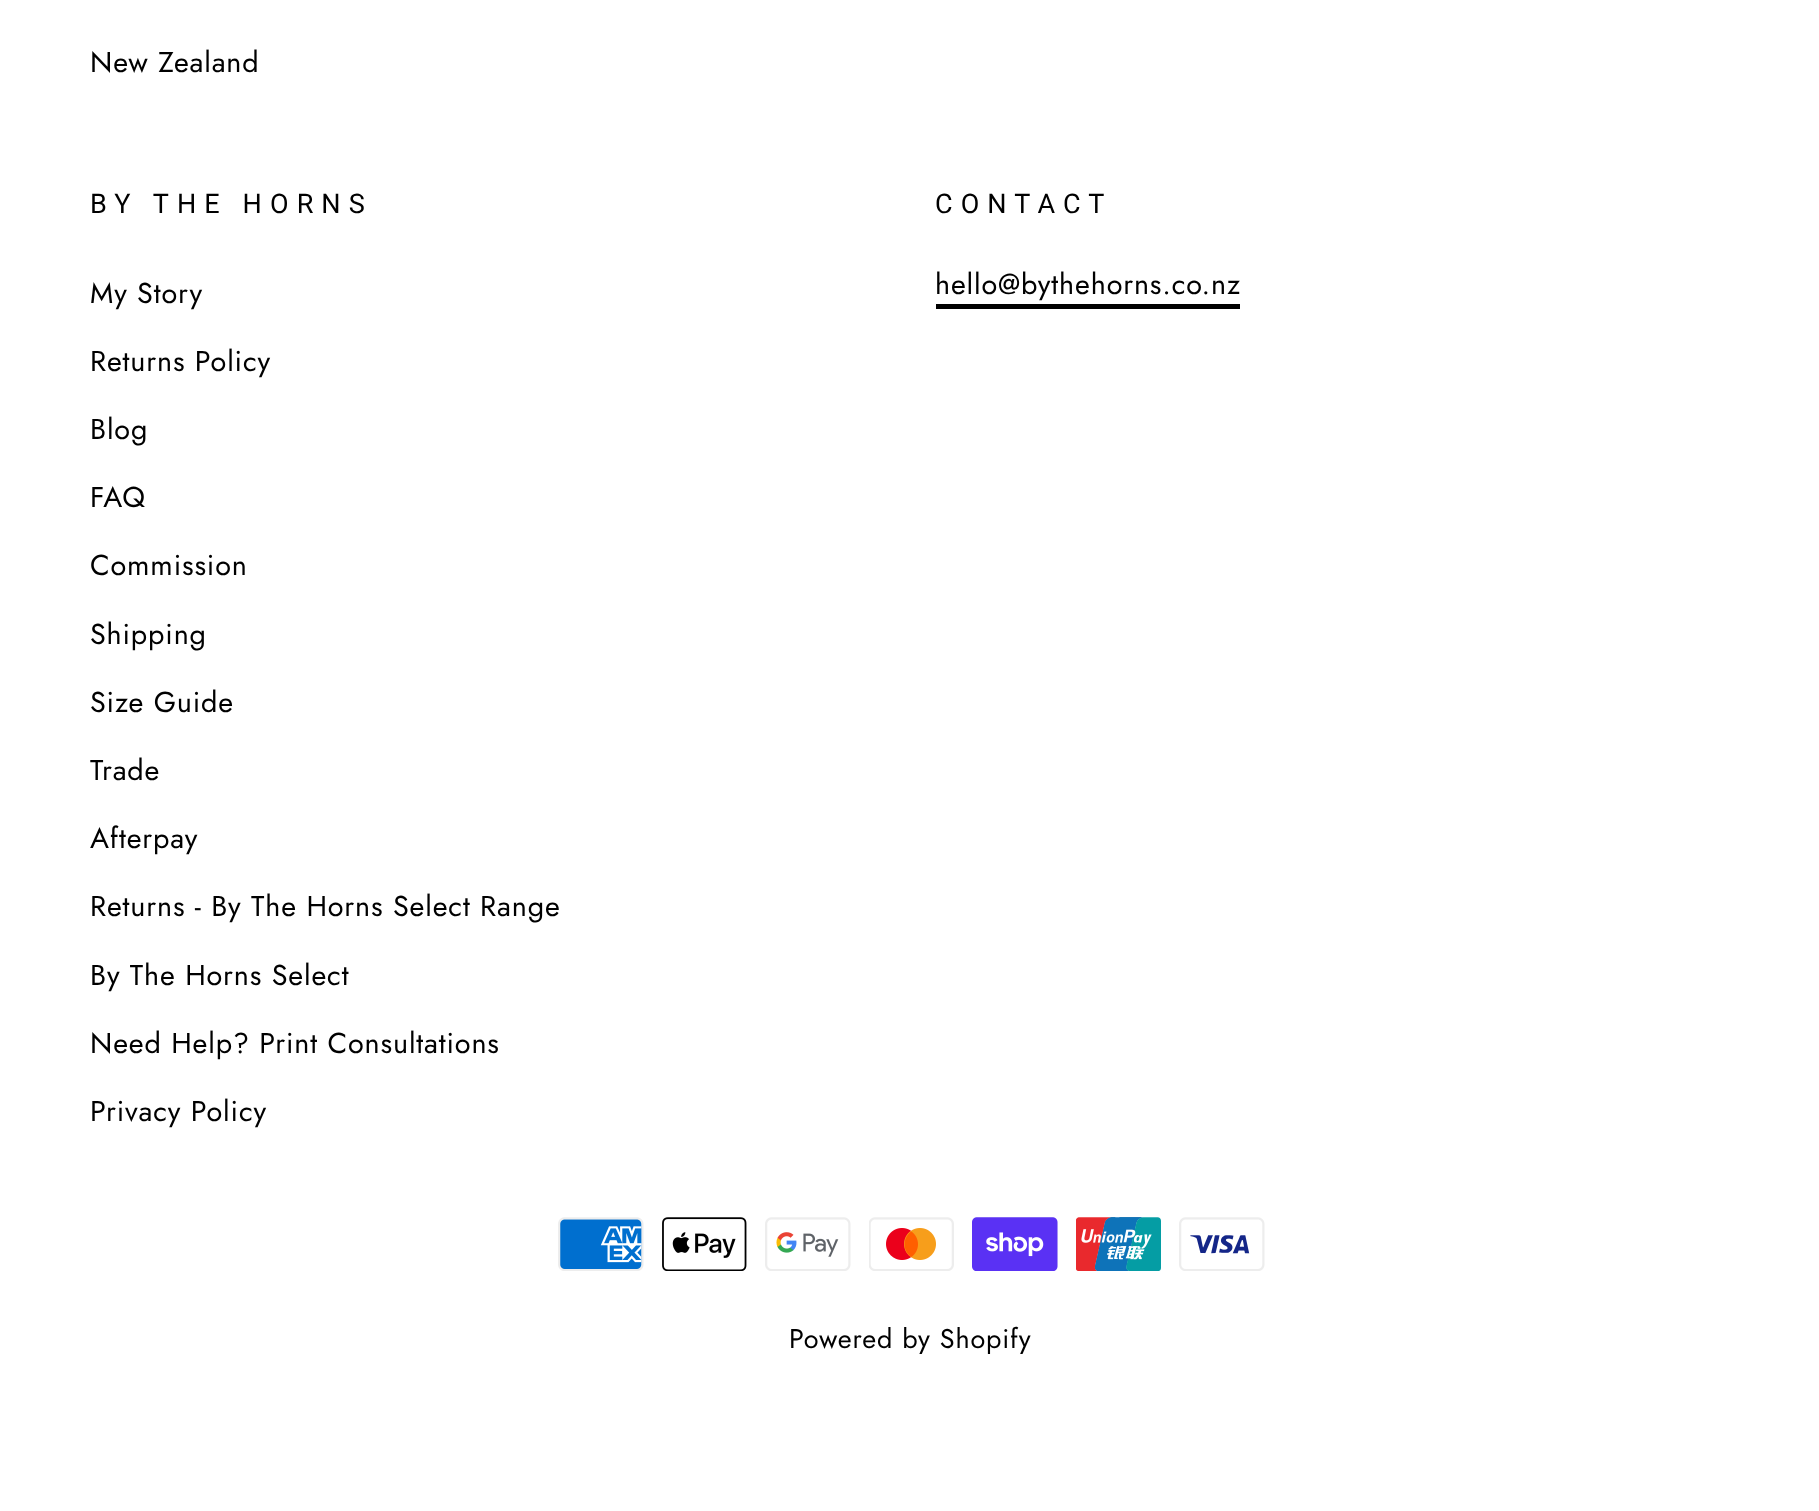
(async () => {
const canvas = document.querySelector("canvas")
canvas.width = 1819
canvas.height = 1511
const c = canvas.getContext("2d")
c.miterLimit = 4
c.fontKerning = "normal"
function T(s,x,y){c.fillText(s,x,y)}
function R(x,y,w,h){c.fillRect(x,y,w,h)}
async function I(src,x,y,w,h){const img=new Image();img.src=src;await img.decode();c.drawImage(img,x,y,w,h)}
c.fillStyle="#fff"
R(0,0,1819,1511)
c.letterSpacing="0.85px"
c.font="28.75px Jost"
c.fillStyle="#000"
T("New Zealand",90,72)
c.letterSpacing="8.1px"
c.font="27px Roboto"
T("BY THE HORNS",90,213)
c.letterSpacing="0.85px"
c.font="28.75px Jost"
T("My Story",90,303)
T("Returns Policy",90,371)
T("Blog",90,439)
T("FAQ",90,507)
T("Commission",90,575)
T("Shipping",90,644)
T("Size Guide",90,712)
T("Trade",90,780)
T("Afterpay",90,848)
T("Returns - By The Horns Select Range",90,916)
T("By The Horns Select",90,985)
T("Need Help? Print Consultations",90,1053)
T("Privacy Policy",90,1121)
c.letterSpacing="8.1px"
c.font="27px Roboto"
T("CONTACT",935,213)
c.letterSpacing="0.85px"
c.font="28.75px Jost"
T("hello@bythehorns.co.nz",935,294)
R(936,304,304,5)
await I("1.png",558,1217,86,54)
await I("2.png",662,1217,85,54)
await I("3.png",765,1217,86,54)
await I("4.png",869,1217,85,54)
await I("5.png",972,1217,86,54)
await I("6.png",1076,1217,85,54)
await I("7.png",1179,1217,86,54)
c.font="27px Jost"
T("Powered by Shopify",789,1348)
})()
